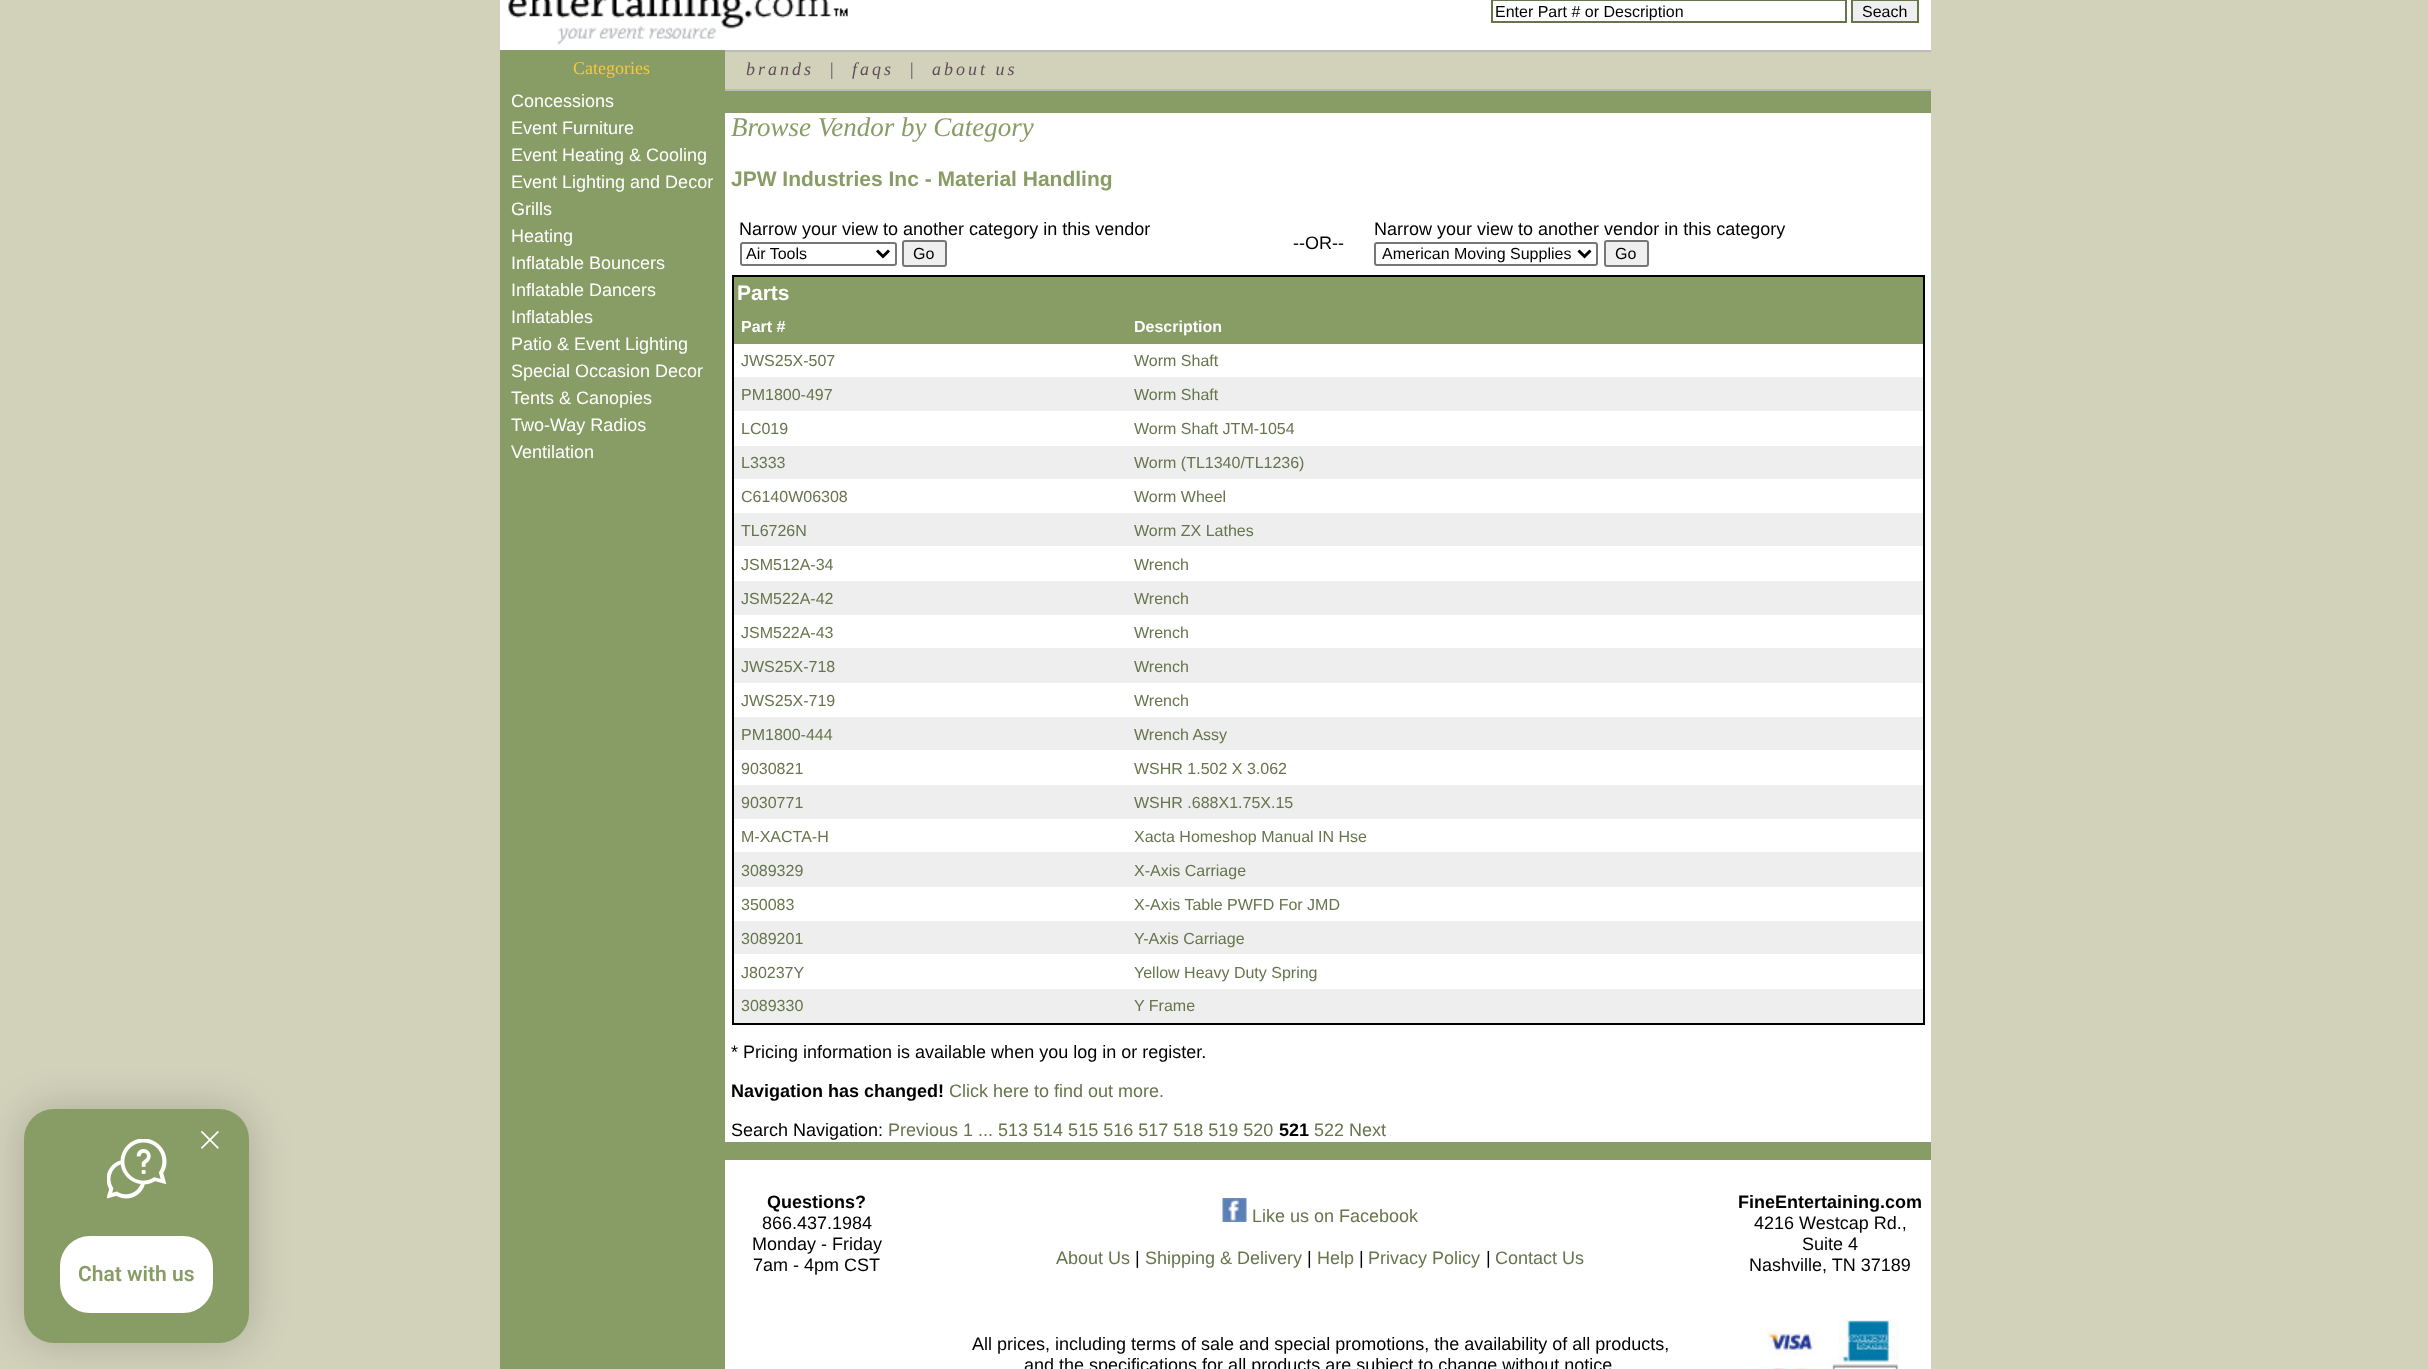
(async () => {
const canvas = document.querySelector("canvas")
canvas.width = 2428
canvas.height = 1369
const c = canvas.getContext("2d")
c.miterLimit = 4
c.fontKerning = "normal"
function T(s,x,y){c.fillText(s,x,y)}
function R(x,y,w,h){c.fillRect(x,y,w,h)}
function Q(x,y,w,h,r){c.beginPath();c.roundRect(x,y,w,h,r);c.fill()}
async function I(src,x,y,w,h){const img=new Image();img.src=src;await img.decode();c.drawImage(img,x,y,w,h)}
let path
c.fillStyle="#d2d2bb"
R(0,0,2428,1369)
c.fillStyle="#fff"
R(500,0,1431,50)
await I("1.png",508,0,340,45)
c.strokeStyle="#66754c"
c.lineWidth=2
c.strokeRect(1492,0,354,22)
c.font="16px Liberation Sans"
c.fillStyle="#000"
T("Enter Part # or Description",1495,17)
c.fillStyle="#efefef"
c.beginPath()
c.rect(1852,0,66,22)
c.fill()
c.stroke()
c.fillStyle="#000"
T("Seach",1862,17)
c.fillStyle="#00000030"
c.filter="blur(20px)"
c.beginPath()
c.roundRect(24,1109,225,234,30)
c.fill()
c.filter="none"
c.fillStyle="#889c65"
Q(24,1109,225,234,30)
await I("2.png",107,1139,60,60)
await I("3.png",201,1131,18,18)
c.fillStyle="#fff"
c.beginPath()
c.roundRect(61.5,1237.5,150,74,28.5)
c.fill()
c.strokeStyle="#fff"
c.lineWidth=3
c.stroke()
c.font="600 21px Roboto"
c.fillStyle="#889c65"
T("Chat with us",78,1281)
R(500,50,1431,1319)
c.font="18px Liberation Serif"
c.fillStyle="#f7c936"
T("Categories",573,74)
c.font="18px Liberation Sans"
c.fillStyle="#fff"
T("Concessions",511,107)
T("Event Furniture",511,134)
T("Event Heating & Cooling",511,161)
T("Event Lighting and Decor",511,188)
T("Grills",511,215)
T("Heating",511,242)
T("Inflatable Bouncers",511,269)
T("Inflatable Dancers",511,296)
T("Inflatables",511,323)
T("Patio & Event Lighting",511,350)
T("Special Occasion Decor",511,377)
T("Tents & Canopies",511,404)
T("Two-Way Radios",511,431)
T("Ventilation",511,458)
c.fillStyle="#d2d2bb"
R(725,52,1206,37)
c.fillStyle="#bbb"
R(725,50,1206,2)
R(725,89,1206,2)
c.letterSpacing="3px"
c.font="italic 18px Liberation Serif"
c.fillStyle="#604e59"
T("brands",746,75)
T("|",829,75)
T("faqs",852,75)
T("|",909,75)
T("about us",932,75)
c.fillStyle="#fff"
R(725,113,1206,1029)
c.letterSpacing="0px"
c.font="italic 27px Liberation Serif"
c.fillStyle="#889c65"
T("Browse Vendor by Category",731,136)
c.font="bold 21px Liberation Sans"
T("JPW Industries Inc - Material Handling",731,186)
c.font="18px Liberation Sans"
c.fillStyle="#000"
T("Narrow your view to another category in this vendor",739,235)
c.beginPath()
c.roundRect(741,243,155,22,2)
c.strokeStyle="#767676"
c.lineWidth=2
c.stroke()
path = new Path2D("M877 250.5l6 6l6-6")
c.strokeStyle="#000"
c.lineWidth=3
c.stroke(path)
c.font="16px Liberation Sans"
T("Air Tools",746,259)
c.fillStyle="#efefef"
c.beginPath()
c.roundRect(903,241,43,25,2)
c.fill()
c.strokeStyle="#767676"
c.lineWidth=2
c.stroke()
c.fillStyle="#000"
T("Go",913,259)
c.font="18px Liberation Sans"
T("--OR--",1293,249)
T("Narrow your view to another vendor in this category",1374,235)
c.beginPath()
c.roundRect(1375,243,222,22,2)
c.stroke()
path = new Path2D("M1578.5 250.5l6 6l6-6")
c.strokeStyle="#000"
c.lineWidth=3
c.stroke(path)
c.font="16px Liberation Sans"
T("American Moving Supplies",1382,259)
c.fillStyle="#efefef"
c.beginPath()
c.roundRect(1605,241,43,25,2)
c.fill()
c.strokeStyle="#767676"
c.lineWidth=2
c.stroke()
c.fillStyle="#000"
T("Go",1615,259)
R(732,275,1193,2)
R(1923,275,2,750)
R(732,1023,1193,2)
R(732,275,2,750)
c.fillStyle="#889c65"
R(734,277,1189,32)
c.font="bold 21px Liberation Sans"
c.fillStyle="#fff"
T("Parts",737,300)
c.fillStyle="#889c65"
R(734,309,1189,35)
c.font="bold 16px Liberation Sans"
c.fillStyle="#fff"
T("Part #",741,332)
T("Description",1134,332)
c.font="16px Liberation Sans"
c.fillStyle="#66754c"
T("JWS25X-507",741,366)
T("Worm Shaft",1134,366)
c.fillStyle="#eee"
R(734,377,1189,34)
c.fillStyle="#66754c"
T("PM1800-497",741,400)
T("Worm Shaft",1134,400)
T("LC019",741,434)
T("Worm Shaft JTM-1054",1134,434)
c.fillStyle="#eee"
R(734,446,1189,33)
c.fillStyle="#66754c"
T("L3333",741,468)
T("Worm (TL1340/TL1236)",1134,468)
T("C6140W06308",741,502)
T("Worm Wheel",1134,502)
c.fillStyle="#eee"
R(734,513,1189,33)
c.fillStyle="#66754c"
T("TL6726N",741,536)
T("Worm ZX Lathes",1134,536)
T("JSM512A-34",741,570)
T("Wrench",1134,570)
c.fillStyle="#eee"
R(734,581,1189,34)
c.fillStyle="#66754c"
T("JSM522A-42",741,604)
T("Wrench",1134,604)
T("JSM522A-43",741,638)
T("Wrench",1134,638)
c.fillStyle="#eee"
R(734,648,1189,35)
c.fillStyle="#66754c"
T("JWS25X-718",741,672)
T("Wrench",1134,672)
T("JWS25X-719",741,706)
T("Wrench",1134,706)
c.fillStyle="#eee"
R(734,717,1189,33)
c.fillStyle="#66754c"
T("PM1800-444",741,740)
T("Wrench Assy",1134,740)
T("9030821",741,774)
T("WSHR 1.502 X 3.062",1134,774)
c.fillStyle="#eee"
R(734,785,1189,34)
c.fillStyle="#66754c"
T("9030771",741,808)
T("WSHR .688X1.75X.15",1134,808)
T("M-XACTA-H",741,842)
T("Xacta Homeshop Manual IN Hse",1134,842)
c.fillStyle="#eee"
R(734,852,1189,35)
c.fillStyle="#66754c"
T("3089329",741,876)
T("X-Axis Carriage",1134,876)
T("350083",741,910)
T("X-Axis Table PWFD For JMD",1134,910)
c.fillStyle="#eee"
R(734,921,1189,33)
c.fillStyle="#66754c"
T("3089201",741,944)
T("Y-Axis Carriage",1134,944)
T("J80237Y",741,978)
T("Yellow Heavy Duty Spring",1134,978)
c.fillStyle="#eee"
R(734,989,1189,34)
c.fillStyle="#66754c"
T("3089330",741,1011)
T("Y Frame",1134,1011)
c.font="18px Liberation Sans"
c.fillStyle="#000"
T("* Pricing information is available when you log in or register.",731,1058)
c.font="bold 18px Liberation Sans"
T("Navigation has changed!",731,1097)
c.font="18px Liberation Sans"
c.fillStyle="#66754c"
T("Click here to find out more.",949,1097)
c.fillStyle="#000"
T("Search Navigation:",731,1136)
c.fillStyle="#66754c"
T("Previous 1 ... 513 514 515 516 517 518 519 520",888,1136)
c.font="bold 18px Liberation Sans"
c.fillStyle="#000"
T("521",1279,1136)
c.font="18px Liberation Sans"
c.fillStyle="#66754c"
T("522 Next",1314,1136)
c.fillStyle="#fff"
R(725,1160,1206,209)
c.font="bold 18px Liberation Sans"
c.fillStyle="#000"
T("Questions?",767,1208)
c.font="18px Liberation Sans"
T("866.437.1984",762,1229)
T("Monday - Friday",752,1250)
T("7am - 4pm CST",753,1271)
await I("4.png",1222,1198,25,24)
c.fillStyle="#66754c"
T("Like us on Facebook",1252,1222)
T("About Us",1056,1264)
c.fillStyle="#000"
T("|",1135,1264)
c.fillStyle="#66754c"
T("Shipping & Delivery",1145,1264)
c.fillStyle="#000"
T("|",1307,1264)
c.fillStyle="#66754c"
T("Help",1317,1264)
c.fillStyle="#000"
T("|",1359,1264)
c.fillStyle="#66754c"
T("Privacy Policy",1368,1264)
c.fillStyle="#000"
T("|",1486,1264)
c.fillStyle="#66754c"
T("Contact Us",1495,1264)
c.font="bold 18px Liberation Sans"
c.fillStyle="#000"
T("FineEntertaining.com",1738,1208)
c.font="18px Liberation Sans"
T("4216 Westcap Rd.,",1754,1229)
T("Suite 4",1802,1250)
T("Nashville, TN 37189",1749,1271)
T("All prices, including terms of sale and special promotions, the availability of all products,",972,1350)
T("and the specifications for all products are subject to change without notice",1024,1371)
await I("5.png",1755,1319,144,50)
})()
